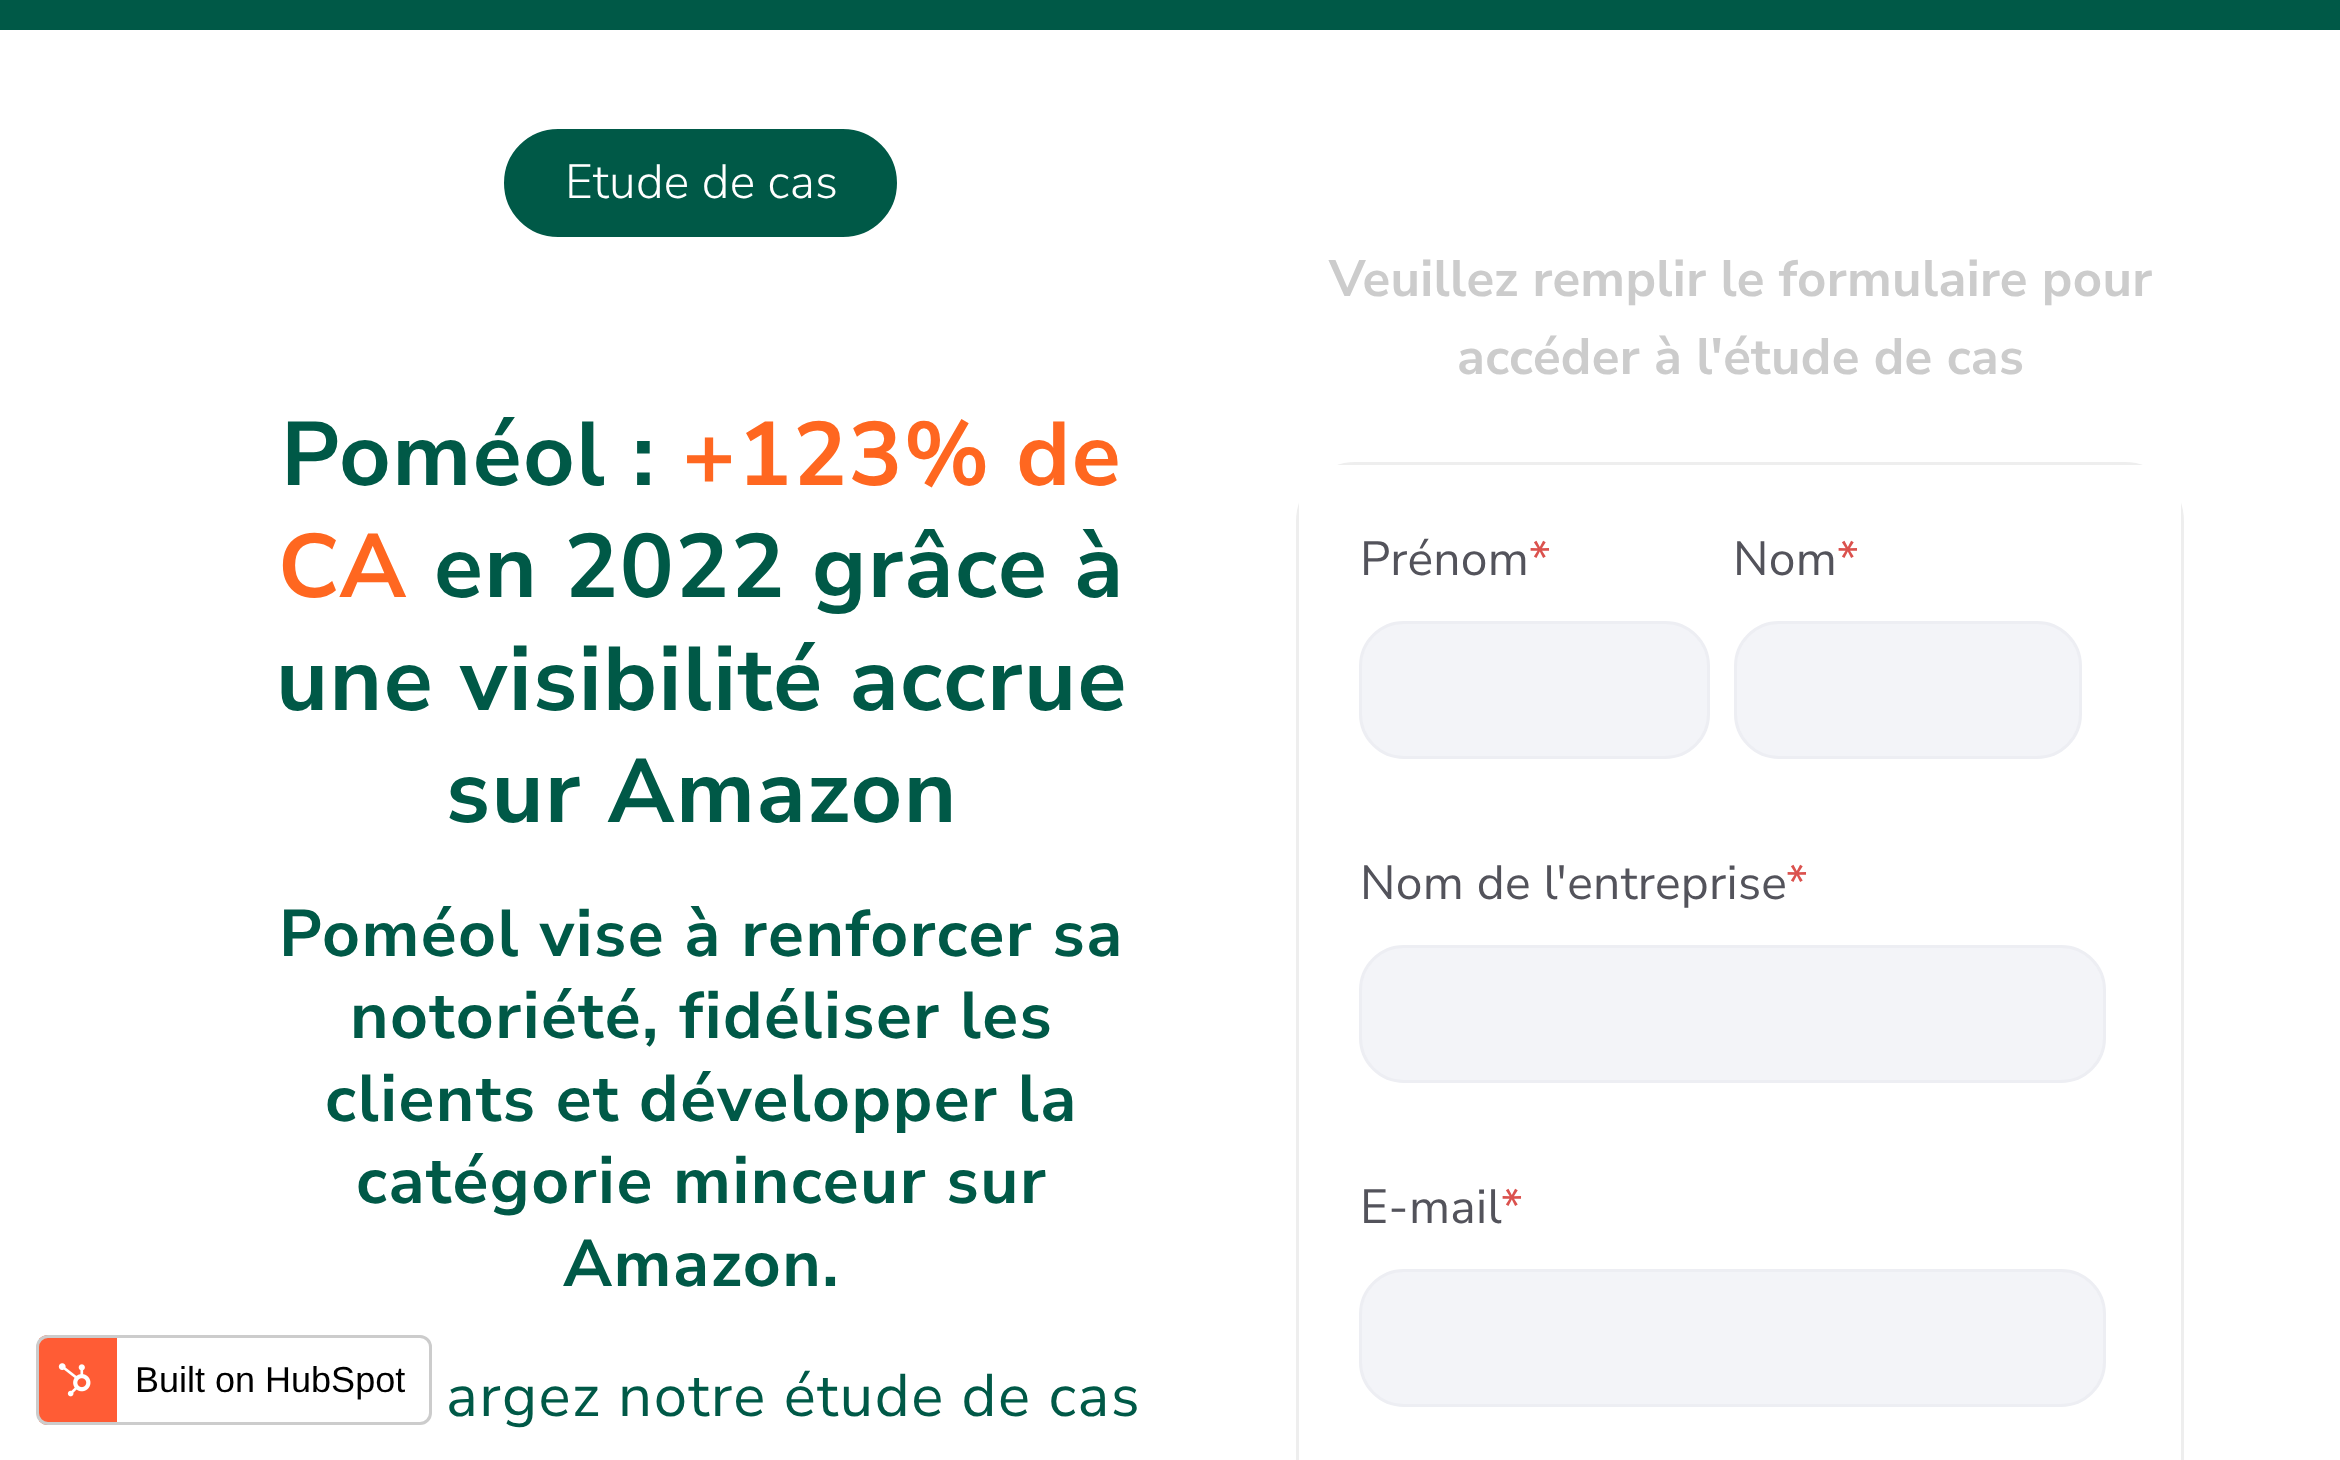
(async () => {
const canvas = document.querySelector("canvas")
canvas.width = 2340
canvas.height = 1460
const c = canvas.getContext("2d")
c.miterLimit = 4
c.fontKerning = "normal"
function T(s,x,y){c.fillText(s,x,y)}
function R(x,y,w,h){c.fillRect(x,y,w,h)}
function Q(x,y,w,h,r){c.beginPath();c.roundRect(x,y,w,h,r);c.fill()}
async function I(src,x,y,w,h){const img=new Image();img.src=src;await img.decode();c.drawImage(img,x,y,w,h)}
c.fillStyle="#fff"
R(0,0,2340,1460)
c.save()
c.beginPath()
c.roundRect(36,1335,396,90,12)
c.clip()
c.fillStyle="#ff5c35"
R(39,1335,78,90)
c.restore()
c.beginPath()
c.roundRect(37.5,1336.5,393,87,10.5)
c.strokeStyle="#ccc"
c.lineWidth=3
c.stroke()
await I("1.png",58,1363,33,34)
c.font="36px Liberation Sans"
c.fillStyle="#000"
T("Built on HubSpot",135,1392)
c.fillStyle="#005947"
R(0,0,2340,30)
c.beginPath()
c.roundRect(501,126,399,114,57)
c.fill()
c.strokeStyle="#fff"
c.lineWidth=6
c.stroke()
c.letterSpacing="0.3px"
c.font="300 48px Nunito Sans"
c.fillStyle="#fff"
T("Etude de cas",565,198)
c.letterSpacing="1.5px"
c.font="bold 90px Nunito Sans"
c.fillStyle="#005947"
T("Poméol :",281,485)
c.fillStyle="#ff6720"
T("+123% de",682,485)
T("CA",278,597)
c.fillStyle="#005947"
T("en 2022 grâce à",434,597)
T("une visibilité accrue",276,710)
T("sur Amazon",446,822)
c.font="bold 66px Nunito Sans"
T("Poméol vise à renforcer sa",279,956)
T("notoriété, fidéliser les",350,1038)
T("clients et développer la",325,1121)
T("catégorie minceur sur",356,1203)
T("Amazon.",563,1286)
c.font="60px Nunito Sans"
T("argez notre étude de cas",446,1416)
c.letterSpacing="0.3px"
c.font="bold 51px Nunito Sans"
c.fillStyle="#ccc"
T("Veuillez remplir le formulaire pour",1329,296)
T("accéder à l'étude de cas",1457,374)
c.beginPath()
c.roundRect(1297.5,463.5,885,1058,58.5)
c.strokeStyle="#eee"
c.lineWidth=3
c.stroke()
c.fillStyle="#fff"
Q(1299,465,882,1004,9)
c.font="48px Nunito Sans"
c.fillStyle="#53535b"
T("Prénom",1360,575)
c.fillStyle="#db524e"
T("*",1529,575)
c.fillStyle="#f3f4f8"
c.beginPath()
c.roundRect(1360.5,622.5,348,135,43.5)
c.fill()
c.strokeStyle="#edeef3"
c.stroke()
c.fillStyle="#53535b"
T("Nom",1733,575)
c.fillStyle="#db524e"
T("*",1837,575)
c.fillStyle="#f3f4f8"
c.beginPath()
c.roundRect(1735.5,622.5,345,135,43.5)
c.fill()
c.stroke()
c.fillStyle="#53535b"
T("Nom de l'entreprise",1360,899)
c.fillStyle="#db524e"
T("*",1786,899)
c.fillStyle="#f3f4f8"
c.beginPath()
c.roundRect(1360.5,946.5,744,135,43.5)
c.fill()
c.stroke()
c.fillStyle="#53535b"
T("E-mail",1360,1223)
c.fillStyle="#db524e"
T("*",1501,1223)
c.fillStyle="#f3f4f8"
c.beginPath()
c.roundRect(1360.5,1270.5,744,135,43.5)
c.fill()
c.stroke()
})()
